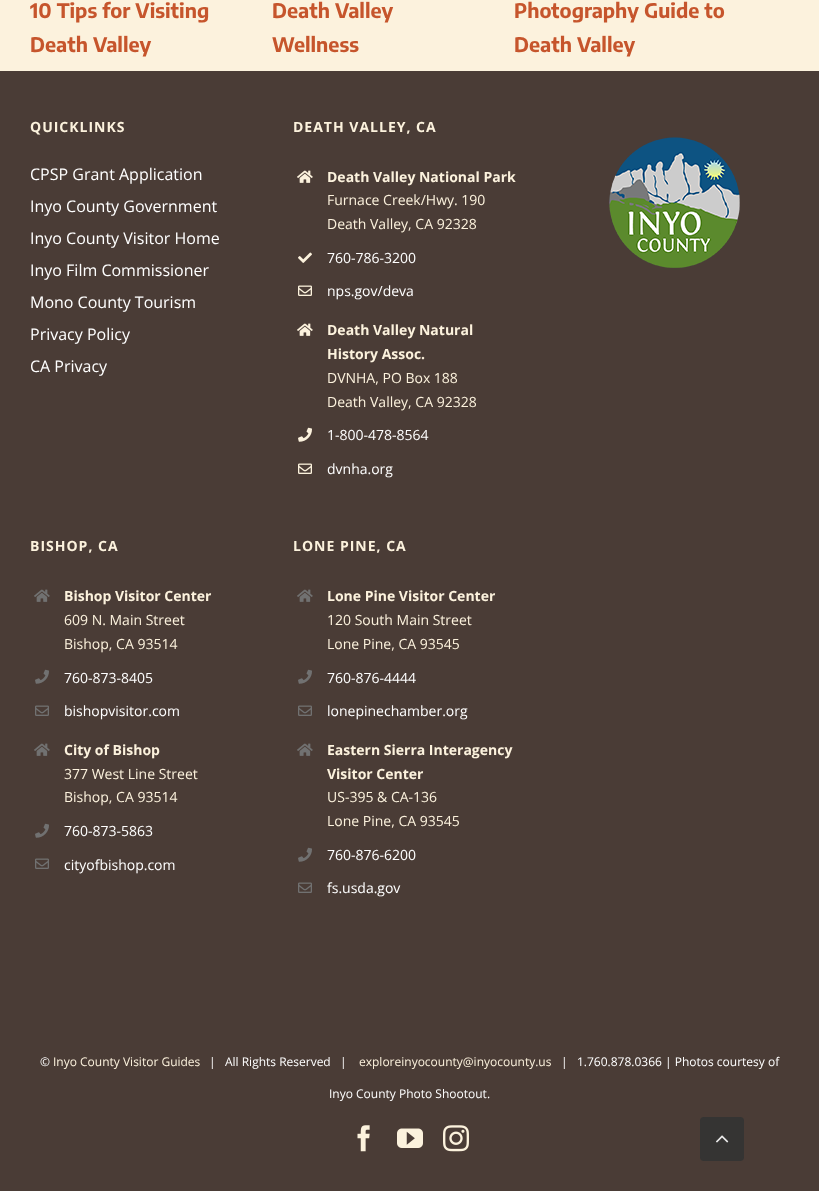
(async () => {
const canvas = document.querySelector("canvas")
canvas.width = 819
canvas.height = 1191
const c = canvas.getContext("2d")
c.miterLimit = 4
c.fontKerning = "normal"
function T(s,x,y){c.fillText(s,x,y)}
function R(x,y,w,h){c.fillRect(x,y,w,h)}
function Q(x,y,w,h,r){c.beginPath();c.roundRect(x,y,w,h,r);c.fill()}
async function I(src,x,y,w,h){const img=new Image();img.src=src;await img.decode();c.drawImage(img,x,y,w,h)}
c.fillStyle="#fcf2dd"
R(0,0,819,1191)
c.font="bold 20px Encode Sans Condensed"
c.fillStyle="#c6552c"
T("10 Tips for Visiting",30,18)
T("Death Valley",30,52)
T("Death Valley",272,18)
T("Wellness",272,52)
T("Photography Guide to",514,18)
T("Death Valley",514,52)
c.fillStyle="#4a3c36"
R(0,71,819,1120)
c.letterSpacing="1px"
c.font="bold 14px Open Sans"
c.fillStyle="#fcf2dd"
T("QUICKLINKS",30,132)
c.letterSpacing="0px"
c.font="16px Open Sans"
c.fillStyle="#fff"
T("CPSP Grant Application",30,180)
T("Inyo County Government",30,212)
T("Inyo County Visitor Home",30,244)
T("Inyo Film Commissioner",30,276)
T("Mono County Tourism",30,308)
T("Privacy Policy",30,340)
T("CA Privacy",30,372)
c.letterSpacing="1px"
c.font="bold 14px Open Sans"
c.fillStyle="#fcf2dd"
T("DEATH VALLEY, CA",293,132)
await I("1.png",297,170,16,13)
c.letterSpacing="0px"
T("Death Valley National Park",327,182)
c.font="14px Open Sans"
T("Furnace Creek/Hwy. 190",327,205)
T("Death Valley, CA 92328",327,229)
await I("2.png",298,252,14,11)
c.fillStyle="#fff"
T("760-786-3200",327,263)
await I("3.png",298,285,14,11)
T("nps.gov/deva",327,296)
await I("1.png",297,323,16,13)
c.font="bold 14px Open Sans"
c.fillStyle="#fcf2dd"
T("Death Valley Natural",327,335)
T("History Assoc.",327,359)
c.font="14px Open Sans"
T("DVNHA, PO Box 188",327,383)
T("Death Valley, CA 92328",327,407)
await I("4.png",298,427,14,15)
c.fillStyle="#fff"
T("1-800-478-8564",327,440)
await I("3.png",298,463,14,11)
T("dvnha.org",327,474)
await I("5.png",609,137,131,131)
c.letterSpacing="1px"
c.font="bold 14px Open Sans"
c.fillStyle="#fcf2dd"
T("BISHOP, CA",30,551)
await I("6.png",34,589,16,13)
c.letterSpacing="0px"
T("Bishop Visitor Center",64,601)
c.font="14px Open Sans"
T("609 N. Main Street",64,625)
T("Bishop, CA 93514",64,649)
await I("7.png",35,669,14,15)
c.fillStyle="#fff"
T("760-873-8405",64,683)
await I("8.png",35,705,14,11)
T("bishopvisitor.com",64,716)
await I("6.png",34,743,16,13)
c.font="bold 14px Open Sans"
c.fillStyle="#fcf2dd"
T("City of Bishop",64,755)
c.font="14px Open Sans"
T("377 West Line Street",64,779)
T("Bishop, CA 93514",64,802)
await I("7.png",35,823,14,15)
c.fillStyle="#fff"
T("760-873-5863",64,836)
await I("8.png",35,858,14,11)
T("cityofbishop.com",64,870)
c.letterSpacing="1px"
c.font="bold 14px Open Sans"
c.fillStyle="#fcf2dd"
T("LONE PINE, CA",293,551)
await I("6.png",297,589,16,13)
c.letterSpacing="0px"
T("Lone Pine Visitor Center",327,601)
c.font="14px Open Sans"
T("120 South Main Street",327,625)
T("Lone Pine, CA 93545",327,649)
await I("7.png",298,669,14,15)
c.fillStyle="#fff"
T("760-876-4444",327,683)
await I("8.png",298,705,14,11)
T("lonepinechamber.org",327,716)
await I("6.png",297,743,16,13)
c.font="bold 14px Open Sans"
c.fillStyle="#fcf2dd"
T("Eastern Sierra Interagency",327,755)
T("Visitor Center",327,779)
c.font="14px Open Sans"
T("US-395 & CA-136",327,802)
T("Lone Pine, CA 93545",327,826)
await I("7.png",298,847,14,15)
c.fillStyle="#fff"
T("760-876-6200",327,860)
await I("8.png",298,882,14,11)
T("fs.usda.gov",327,893)
c.font="12px Open Sans"
T("©",40,1066)
c.fillStyle="#fcf2dd"
T("Inyo County Visitor Guides",53,1066)
c.fillStyle="#fff"
T("|   All Rights Reserved   |",209,1066)
c.fillStyle="#fcf2dd"
T("exploreinyocounty@inyocounty.us",359,1066)
c.fillStyle="#fff"
T("|   1.760.878.0366 | Photos courtesy of",561,1066)
T("Inyo County Photo Shootout.",329,1098)
await I("9.png",357,1125,13,27)
await I("10.png",397,1128,26,20)
await I("11.png",443,1125,26,27)
c.fillStyle="#353433"
Q(700,1117,44,44,4)
await I("12.png",716,1135,13,8)
})()
